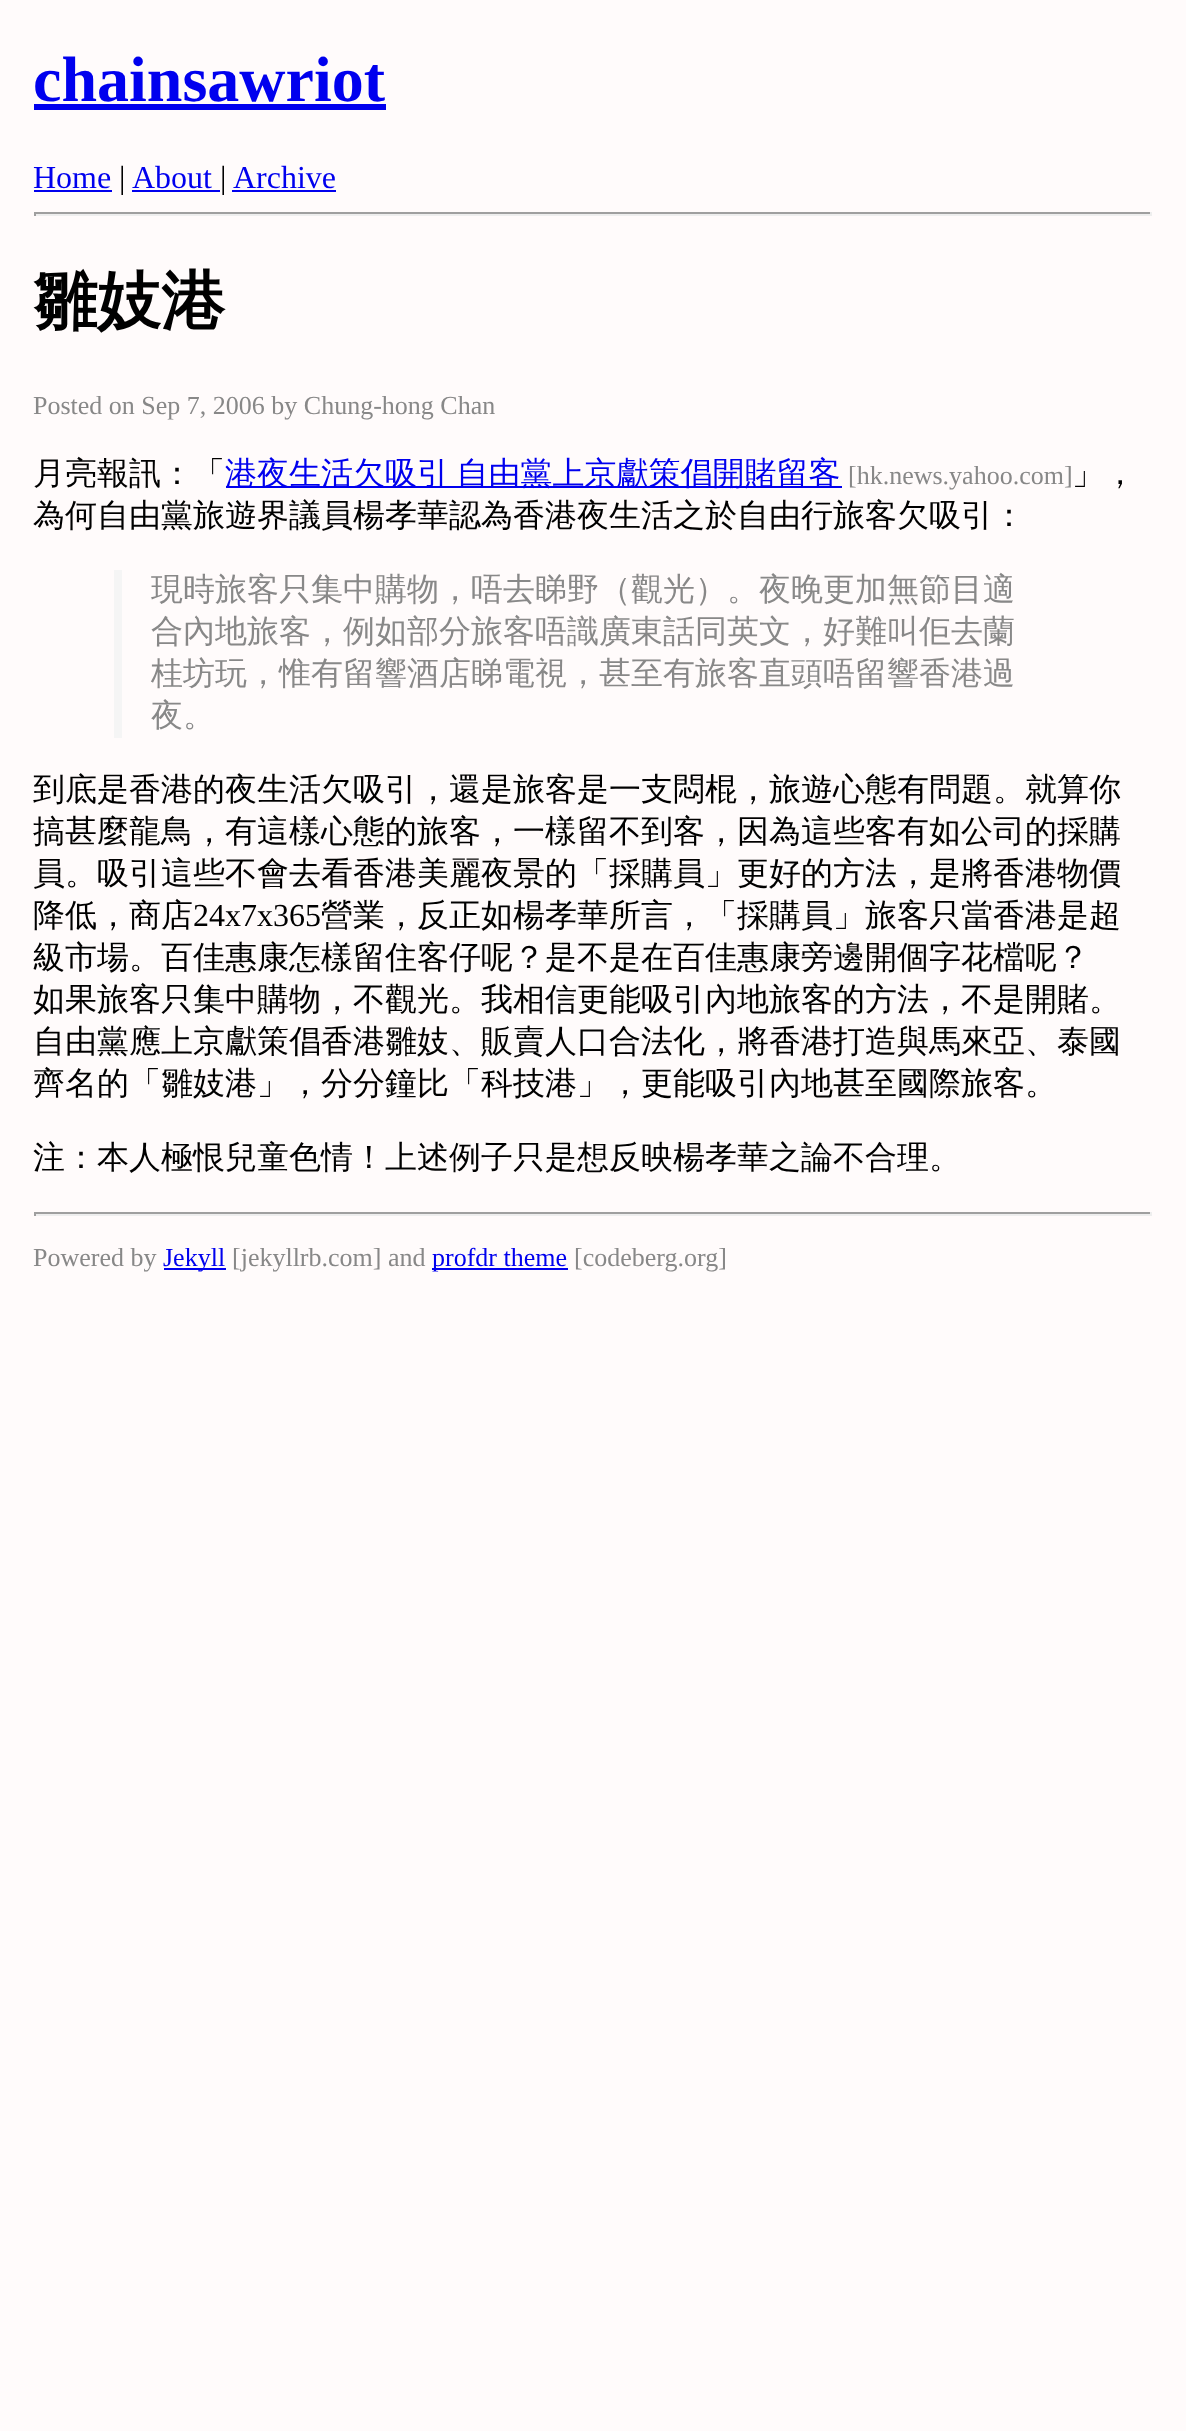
(async () => {
const canvas = document.querySelector("canvas")
canvas.width = 1186
canvas.height = 2431
const c = canvas.getContext("2d")
c.miterLimit = 4
c.fontKerning = "normal"
function T(s,x,y){c.fillText(s,x,y)}
function R(x,y,w,h){c.fillRect(x,y,w,h)}
c.fillStyle="#fffbfb"
R(0,0,1186,2431)
c.font="bold 64px Liberation Serif"
c.fillStyle="#00e"
T("chainsawriot",33,101)
R(34,104,352,6)
c.font="32px Liberation Serif"
T("Home",33,188)
R(34,190,78,2)
c.fillStyle="#000"
T("|",119,188)
c.fillStyle="#00e"
T("About",132,188)
R(132,190,88,2)
c.fillStyle="#000"
T("|",220,188)
c.fillStyle="#00e"
T("Archive",233,188)
R(232,190,104,2)
c.fillStyle="#9f9f9f"
R(34,212,1118,2)
c.fillStyle="#eee"
R(1150,212,2,4)
R(34,214,1118,2)
c.fillStyle="#9f9f9f"
R(34,212,2,4)
c.font="bold 64px WenQuanYi Zen Hei"
c.fillStyle="#000"
T("雛妓港",33,323)
c.font="26px Liberation Serif"
c.fillStyle="#888"
T("Posted on Sep 7, 2006 by Chung-hong Chan",33,414)
c.font="500 32px WenQuanYi Zen Hei"
c.fillStyle="#000"
T("月亮報訊：「",33,484)
c.fillStyle="#00e"
R(226,486,616,2)
c.wordSpacing="-2px"
T("港夜生活欠吸引 自由黨上京獻策倡開賭留客",225,484)
c.wordSpacing="0px"
c.font="26px Liberation Serif"
c.fillStyle="#888"
T("[hk.news.yahoo.com]",848,484)
c.font="500 32px WenQuanYi Zen Hei"
c.fillStyle="#000"
T("」，",1072,484)
T("為何自由黨旅遊界議員楊孝華認為香港夜生活之於自由行旅客欠吸引：",33,526)
c.fillStyle="#f5f5f5"
R(114,570,8,168)
c.fillStyle="#888"
T("現時旅客只集中購物，唔去睇野（觀光）。夜晚更加無節目適",151,600)
T("合內地旅客，例如部分旅客唔識廣東話同英文，好難叫佢去蘭",151,642)
T("桂坊玩，惟有留響酒店睇電視，甚至有旅客直頭唔留響香港過",151,684)
T("夜。",151,726)
c.fillStyle="#000"
T("到底是香港的夜生活欠吸引，還是旅客是一支悶棍，旅遊心態有問題。就算你",33,800)
T("搞甚麼龍鳥，有這樣心態的旅客，一樣留不到客，因為這些客有如公司的採購",33,842)
T("員。吸引這些不會去看香港美麗夜景的「採購員」更好的方法，是將香港物價",33,884)
T("降低，商店",33,926)
c.font="32px Liberation Serif"
T("24x7x365",193,926)
c.font="500 32px WenQuanYi Zen Hei"
T("營業，反正如楊孝華所言，「採購員」旅客只當香港是超",321,926)
T("級市場。百佳惠康怎樣留住客仔呢？是不是在百佳惠康旁邊開個字花檔呢？",33,968)
T("如果旅客只集中購物，不觀光。我相信更能吸引內地旅客的方法，不是開賭。",33,1010)
T("自由黨應上京獻策倡香港雛妓、販賣人口合法化，將香港打造與馬來亞、泰國",33,1052)
T("齊名的「雛妓港」，分分鐘比「科技港」，更能吸引內地甚至國際旅客。",33,1094)
T("注：本人極恨兒童色情！上述例子只是想反映楊孝華之論不合理。",33,1168)
c.fillStyle="#9f9f9f"
R(34,1212,1118,2)
c.fillStyle="#eee"
R(1150,1212,2,4)
R(34,1214,1118,2)
c.fillStyle="#9f9f9f"
R(34,1212,2,4)
c.font="26px Liberation Serif"
c.fillStyle="#888"
T("Powered by",33,1266)
c.fillStyle="#00e"
R(164,1268,62,2)
T("Jekyll",163,1266)
c.fillStyle="#888"
T("[jekyllrb.com] and",232,1266)
c.fillStyle="#00e"
R(432,1268,136,2)
T("profdr theme",432,1266)
c.fillStyle="#888"
T("[codeberg.org]",574,1266)
})()
